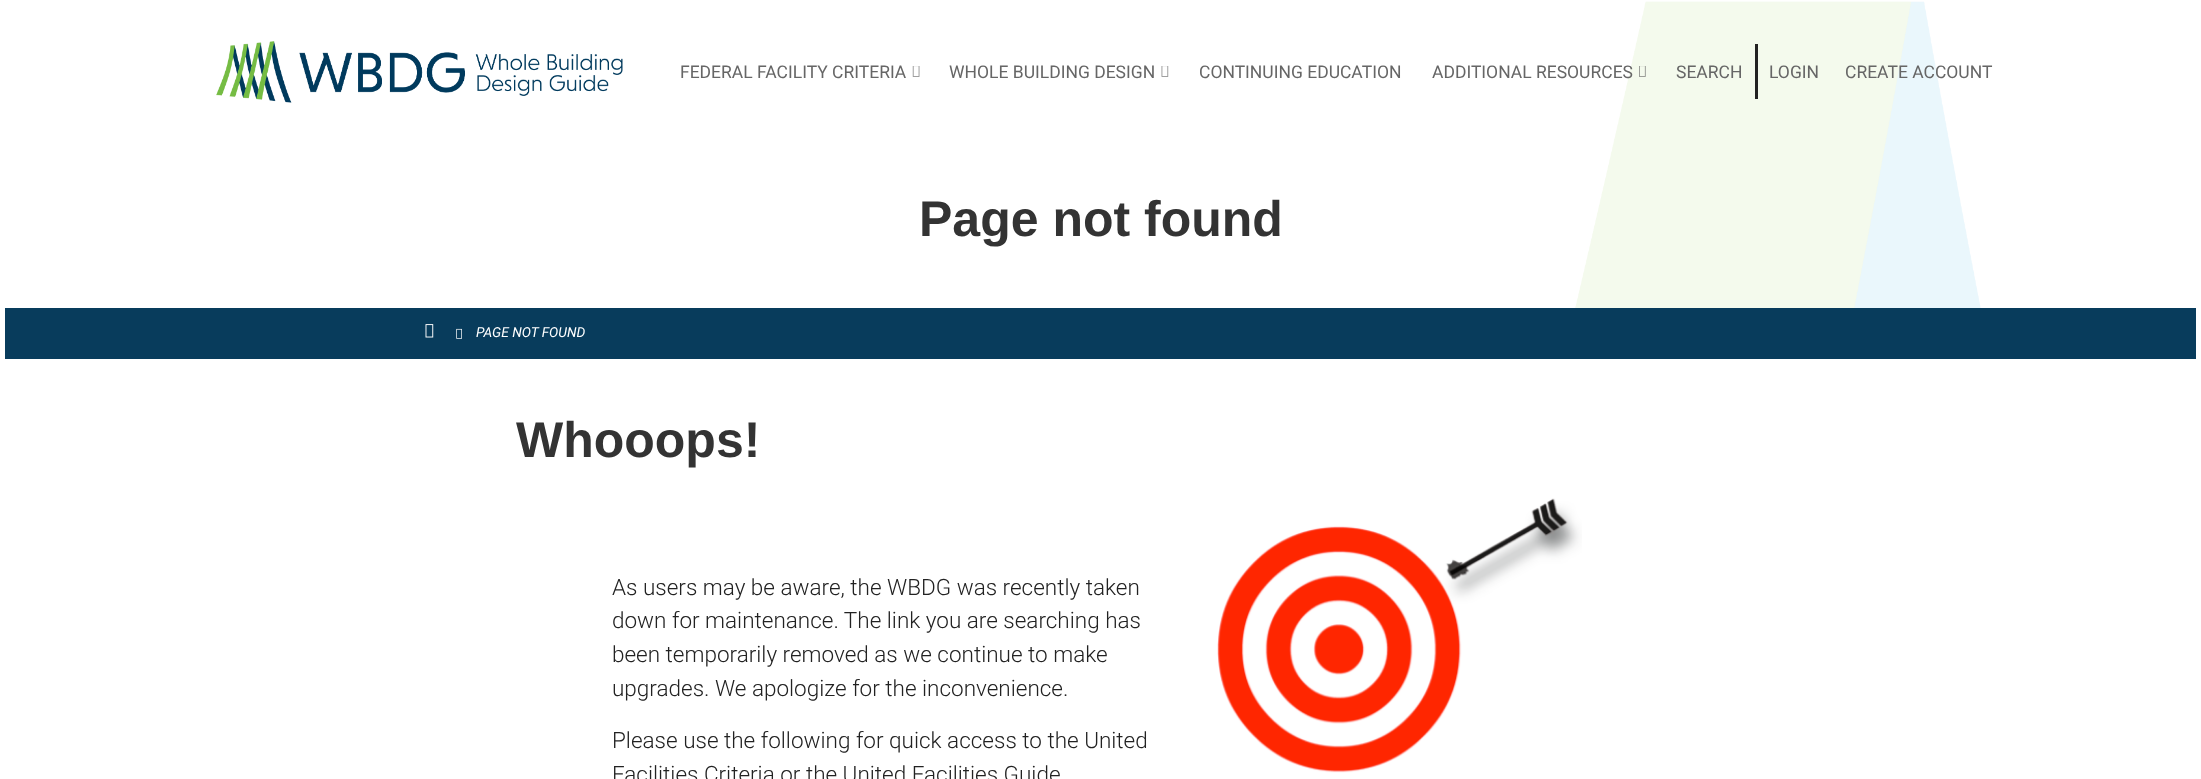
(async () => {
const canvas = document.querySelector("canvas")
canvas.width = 2201
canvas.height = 779
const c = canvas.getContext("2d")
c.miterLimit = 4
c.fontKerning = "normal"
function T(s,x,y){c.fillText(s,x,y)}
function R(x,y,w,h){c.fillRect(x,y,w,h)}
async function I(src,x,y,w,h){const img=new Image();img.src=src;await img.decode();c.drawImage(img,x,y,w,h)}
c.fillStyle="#fff"
R(0,0,2201,779)
await I("1.png",1575,1,406,307)
await I("2.png",216,41,407,62)
c.font="17.5px Roboto"
c.fillStyle="#666"
T("FEDERAL FACILITY CRITERIA",680,78)
await I("3.png",912,66,8,11)
T("WHOLE BUILDING DESIGN",949,78)
await I("4.png",1161,66,8,11)
T("CONTINUING EDUCATION",1199,78)
T("ADDITIONAL RESOURCES",1432,78)
await I("5.png",1639,66,7,11)
T("SEARCH",1676,78)
c.fillStyle="#222"
R(1755,44,3,55)
c.fillStyle="#666"
T("LOGIN",1769,78)
T("CREATE ACCOUNT",1845,78)
c.font="bold 50px Liberation Sans"
c.fillStyle="#333"
T("Page not found",919,236)
c.fillStyle="#083c5c"
R(5,308,2191,51)
await I("6.png",425,324,9,14)
await I("7.png",456,328,6,11)
c.font="italic 13.75px Roboto"
c.fillStyle="#fff"
T("PAGE NOT FOUND",476,337)
c.font="bold 50px Liberation Sans"
c.fillStyle="#333"
T("Whooops!",516,457)
c.font="300 22.5px Roboto"
c.fillStyle="#222"
T("As users may be aware, the WBDG was recently taken",612,595)
T("down for maintenance. The link you are searching has",612,628)
T("been temporarily removed as we continue to make",612,662)
T("upgrades. We apologize for the inconvenience.",612,696)
T("Please use the following for quick access to the United",612,748)
T("Facilities Criteria or the United Facilities Guide",612,782)
await I("8.png",1217,498,365,275)
})()
